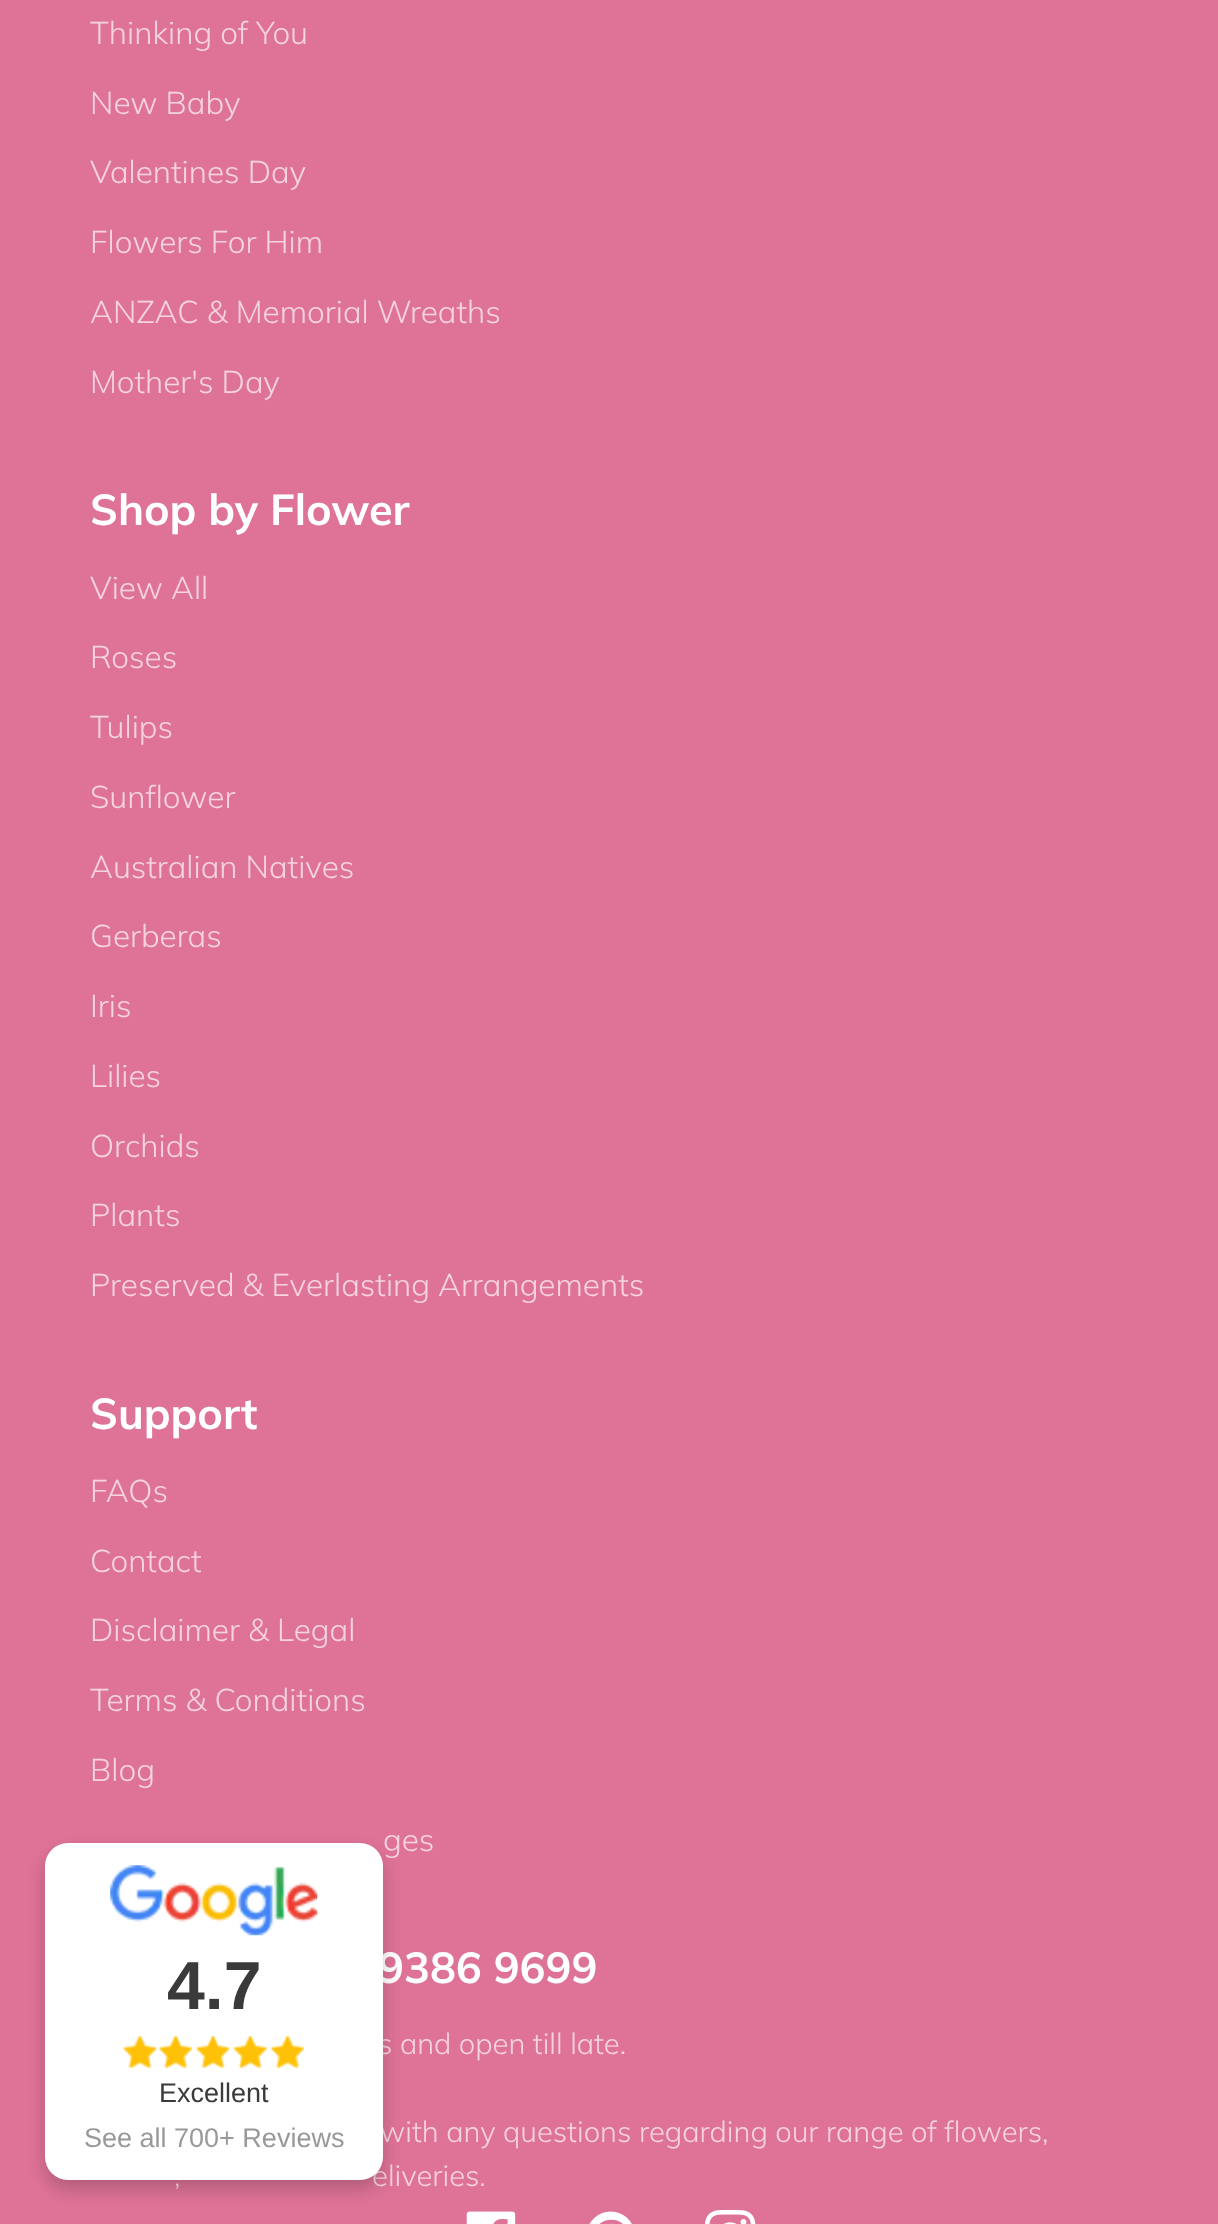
(async () => {
const canvas = document.querySelector("canvas")
canvas.width = 1218
canvas.height = 2224
const c = canvas.getContext("2d")
c.miterLimit = 4
c.fontKerning = "normal"
function T(s,x,y){c.fillText(s,x,y)}
function R(x,y,w,h){c.fillRect(x,y,w,h)}
function Q(x,y,w,h,r){c.beginPath();c.roundRect(x,y,w,h,r);c.fill()}
async function I(src,x,y,w,h){const img=new Image();img.src=src;await img.decode();c.drawImage(img,x,y,w,h)}
c.fillStyle="#df7397"
R(0,0,1218,2224)
c.font="300 31.5px Muli"
c.fillStyle="#f5d3df"
T("Thinking of You",90,44)
T("New Baby",90,114)
T("Valentines Day",90,183)
T("Flowers For Him",90,253)
T("ANZAC & Memorial Wreaths",90,323)
T("Mother's Day",90,393)
c.font="bold 43.25px Muli"
c.fillStyle="#fff"
T("Shop by Flower",90,525)
c.font="300 31.5px Muli"
c.fillStyle="#f5d3df"
T("View All",90,599)
T("Roses",90,668)
T("Tulips",90,738)
T("Sunflower",90,808)
T("Australian Natives",90,878)
T("Gerberas",90,947)
T("Iris",90,1017)
T("Lilies",90,1087)
T("Orchids",90,1157)
T("Plants",90,1226)
T("Preserved & Everlasting Arrangements",90,1296)
c.font="bold 43.25px Muli"
c.fillStyle="#fff"
T("Support",90,1429)
c.font="300 31.5px Muli"
c.fillStyle="#f5d3df"
T("FAQs",90,1502)
T("Contact",90,1572)
T("Disclaimer & Legal",90,1641)
T("Terms & Conditions",90,1711)
T("Blog",90,1781)
T("ges",383,1851)
c.font="bold 43.25px Muli"
c.fillStyle="#fff"
T("9386 9699",378,1983)
c.font="300 29.25px Muli"
c.fillStyle="#f5d3df"
T("s and open till late.",378,2054)
T("with any questions regarding our range of flowers,",380,2142)
T(",",174,2186)
T("eliveries.",372,2186)
await I("1.png",466,2211,50,13)
await I("2.png",589,2211,43,13)
await I("3.png",704,2210,52,14)
c.fillStyle="#00000033"
c.filter="blur(9px)"
c.beginPath()
c.roundRect(45,1852,338,337,23)
c.fill()
c.filter="none"
c.fillStyle="#fff"
Q(45,1843,338,337,23)
await I("4.png",110,1865,208,71)
c.font="bold 68px Liberation Sans"
c.fillStyle="#3a3a3a"
T("4.7",167,2009)
await I("5.png",123,2036,182,33)
c.font="27px Liberation Sans"
T("Excellent",159,2102)
c.fillStyle="#999"
T("See all 700+ Reviews",84,2147)
})()
